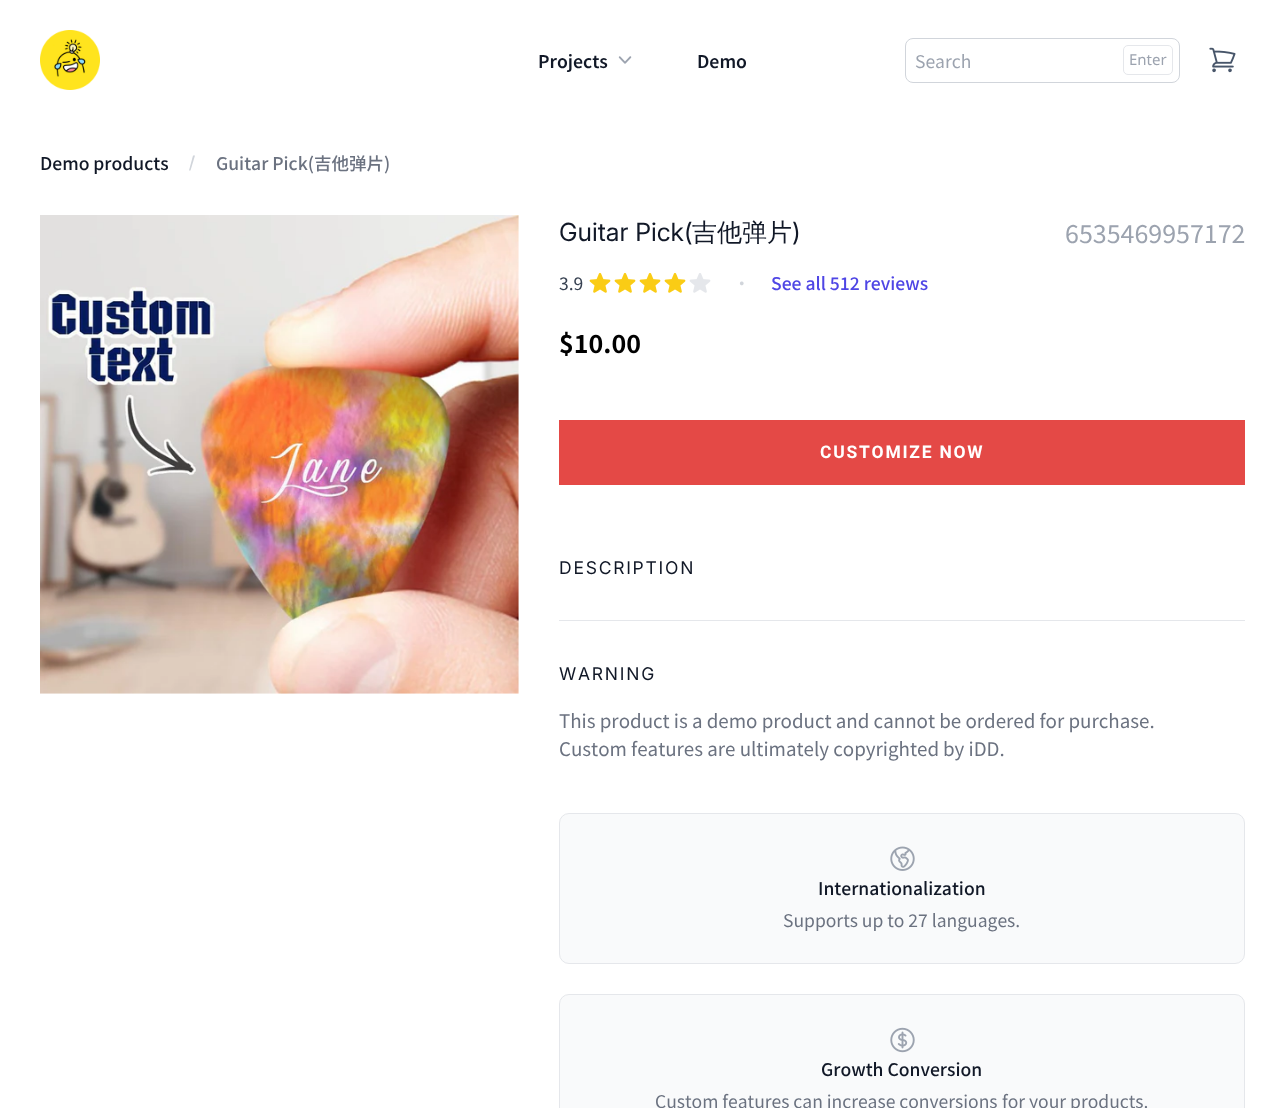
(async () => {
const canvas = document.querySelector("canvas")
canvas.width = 1285
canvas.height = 1108
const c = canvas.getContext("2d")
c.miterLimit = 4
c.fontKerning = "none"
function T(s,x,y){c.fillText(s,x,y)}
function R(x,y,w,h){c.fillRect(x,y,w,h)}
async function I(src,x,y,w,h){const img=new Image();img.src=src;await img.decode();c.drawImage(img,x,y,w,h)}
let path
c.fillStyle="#fff"
R(0,0,1285,1108)
await I("1.png",40,30,60,60)
c.font="600 17.5px Noto Sans SC"
c.fillStyle="#111827"
T("Projects",538,68)
await I("2.png",618,56,14,8)
T("Demo",697,68)
c.beginPath()
c.roundRect(905.5,38.5,274,44,7.5)
c.strokeStyle="#d1d5db"
c.stroke()
c.font="17.5px Noto Sans SC"
c.fillStyle="#9ca3af"
T("Search",915,68)
c.beginPath()
c.roundRect(1123.5,45.5,49,29,4.5)
c.strokeStyle="#e5e7eb"
c.stroke()
c.font="15px Noto Sans"
T("Enter",1129,65)
await I("3.png",1209,47,27,26)
c.font="500 17.5px Noto Sans SC"
c.fillStyle="#111827"
T("Demo products",40,170)
c.fillStyle="#d1d5db"
path = new Path2D("M195 155.5h-2l-4 15h1.5z")
c.fill(path)
c.fillStyle="#6b7280"
T("Guitar Pick(吉他弹片)",216,170)
await I("4.png",40,215,479,479)
c.font="25px Inter"
c.fillStyle="#111827"
T("Guitar Pick(",559,241)
c.font="500 25px WenQuanYi Zen Hei"
T("吉他弹片",692,241)
c.font="25px Inter"
T(")",792,241)
c.font="25px Noto Sans SC"
c.fillStyle="#9ca3af"
T("6535469957172",1065,243)
c.font="17.5px Noto Sans SC"
c.fillStyle="#374151"
T("3.9",559,290)
await I("5.png",589,272,22,21)
await I("5.png",614,272,22,21)
await I("5.png",639,272,22,21)
await I("5.png",664,272,22,21)
await I("6.png",689,273,22,20)
c.fillStyle="#d1d5db"
T("·",733,290)
c.font="500 17.5px Noto Sans SC"
c.fillStyle="#4f46e5"
T("See all 512 reviews",771,290)
c.font="bold 25px Noto Sans SC"
c.fillStyle="#000"
T("$10.00",559,353)
c.fillStyle="#e44946"
R(559,420,686,65)
c.letterSpacing="1.75px"
c.font="bold 17.5px Roboto"
c.fillStyle="#fff"
T("CUSTOMIZE NOW",820,458)
c.font="17.5px 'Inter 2'"
c.fillStyle="#111827"
T("DESCRIPTION",559,574)
c.fillStyle="#e5e7eb"
R(559,620,686,1)
c.fillStyle="#111827"
T("WARNING",559,680)
c.letterSpacing="0px"
c.font="18.75px Noto Sans SC"
c.fillStyle="#6b7280"
T("This product is a demo product and cannot be ordered for purchase.",559,728)
T("Custom features are ultimately copyrighted",559,756)
T("by iDD.",943,756)
c.fillStyle="#f9fafb"
c.beginPath()
c.roundRect(559.5,813.5,685,150,9.5)
c.fill()
c.stroke()
await I("7.png",890,846,25,25)
c.font="500 17.5px Noto Sans SC"
c.fillStyle="#111827"
T("Internationalization",818,895)
c.font="17.5px Noto Sans SC"
c.fillStyle="#6b7280"
T("Supports up to 27 languages.",783,927)
c.fillStyle="#f9fafb"
c.beginPath()
c.roundRect(559.5,994.5,685,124,9.5)
c.fill()
c.stroke()
await I("8.png",890,1027,25,26)
c.font="500 17.5px Noto Sans SC"
c.fillStyle="#111827"
T("Growth Conversion",821,1076)
c.font="17.5px Noto Sans SC"
c.fillStyle="#6b7280"
T("Custom features can increase conversions",655,1108)
T("for your products.",1002,1108)
})()
